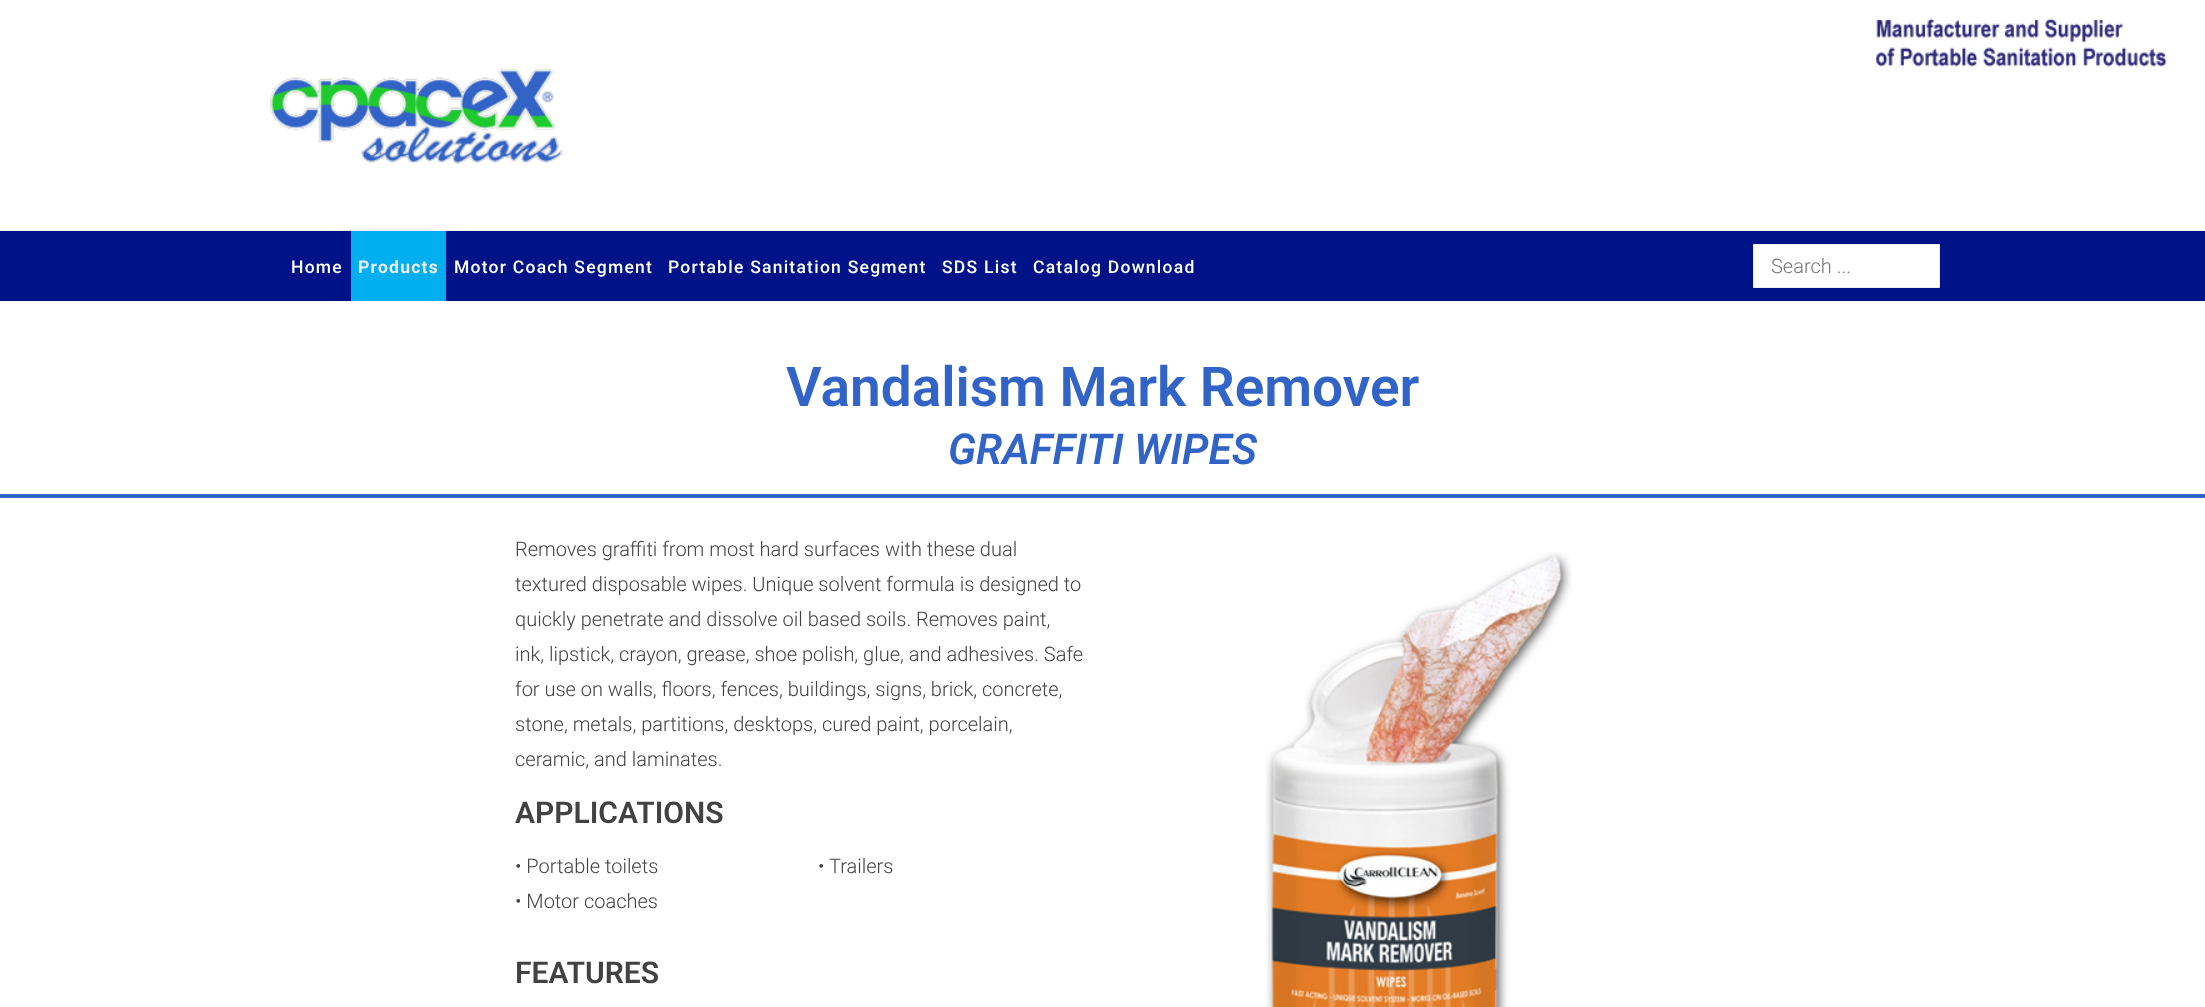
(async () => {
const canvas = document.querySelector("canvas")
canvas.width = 2205
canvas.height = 1007
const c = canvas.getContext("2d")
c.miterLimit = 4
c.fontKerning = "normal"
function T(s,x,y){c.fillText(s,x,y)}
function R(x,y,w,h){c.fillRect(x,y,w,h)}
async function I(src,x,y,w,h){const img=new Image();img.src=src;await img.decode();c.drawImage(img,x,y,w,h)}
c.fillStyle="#fff"
R(0,0,2205,1007)
await I("1.png",1876,18,291,52)
c.fillStyle="#f2f2f2"
R(0,230,2205,1)
await I("2.png",270,68,293,96)
c.fillStyle="#001287"
R(0,231,2205,70)
c.letterSpacing="1.25px"
c.font="500 17.5px Roboto"
c.fillStyle="#fff"
T("Home",291,273)
c.fillStyle="#01aef0"
R(351,231,95,70)
c.font="bold 17.5px Roboto"
c.fillStyle="#eee"
T("Products",358,273)
c.font="500 17.5px Roboto"
c.fillStyle="#fff"
T("Motor Coach Segment",454,273)
T("Portable Sanitation Segment",668,273)
T("SDS List",942,273)
T("Catalog Download",1033,273)
c.beginPath()
c.rect(1753.5,244.5,186,43)
c.fill()
c.strokeStyle="#ededed"
c.stroke()
c.letterSpacing="0px"
c.font="300 20px Roboto"
c.fillStyle="#757575"
T("Search ...",1771,273)
c.fillStyle="#3263c6"
R(0,494,2205,4)
c.font="600 55px Roboto"
T("Vandalism Mark Remover",786,406)
c.font="italic 600 42.5px Roboto"
T("GRAFFITI WIPES",948,464)
c.font="300 20px Roboto"
c.fillStyle="#424242"
T("Removes graffiti from most hard surfaces with these dual",515,556)
T("textured disposable wipes. Unique solvent formula is designed to",515,591)
T("quickly penetrate and dissolve oil based soils. Removes paint,",515,626)
T("ink, lipstick, crayon, grease, shoe polish, glue, and adhesives. Safe",515,661)
T("for use on walls, floors, fences, buildings, signs, brick, concrete,",515,696)
T("stone, metals, partitions, desktops, cured paint, porcelain,",515,731)
T("ceramic, and laminates.",515,766)
c.font="600 30px Roboto"
T("APPLICATIONS",515,823)
c.font="300 20px Roboto"
T("• Portable toilets",515,873)
T("• Motor coaches",515,908)
T("• Trailers",818,873)
c.font="600 30px Roboto"
T("FEATURES",515,983)
await I("3.png",1265,552,307,455)
})()
